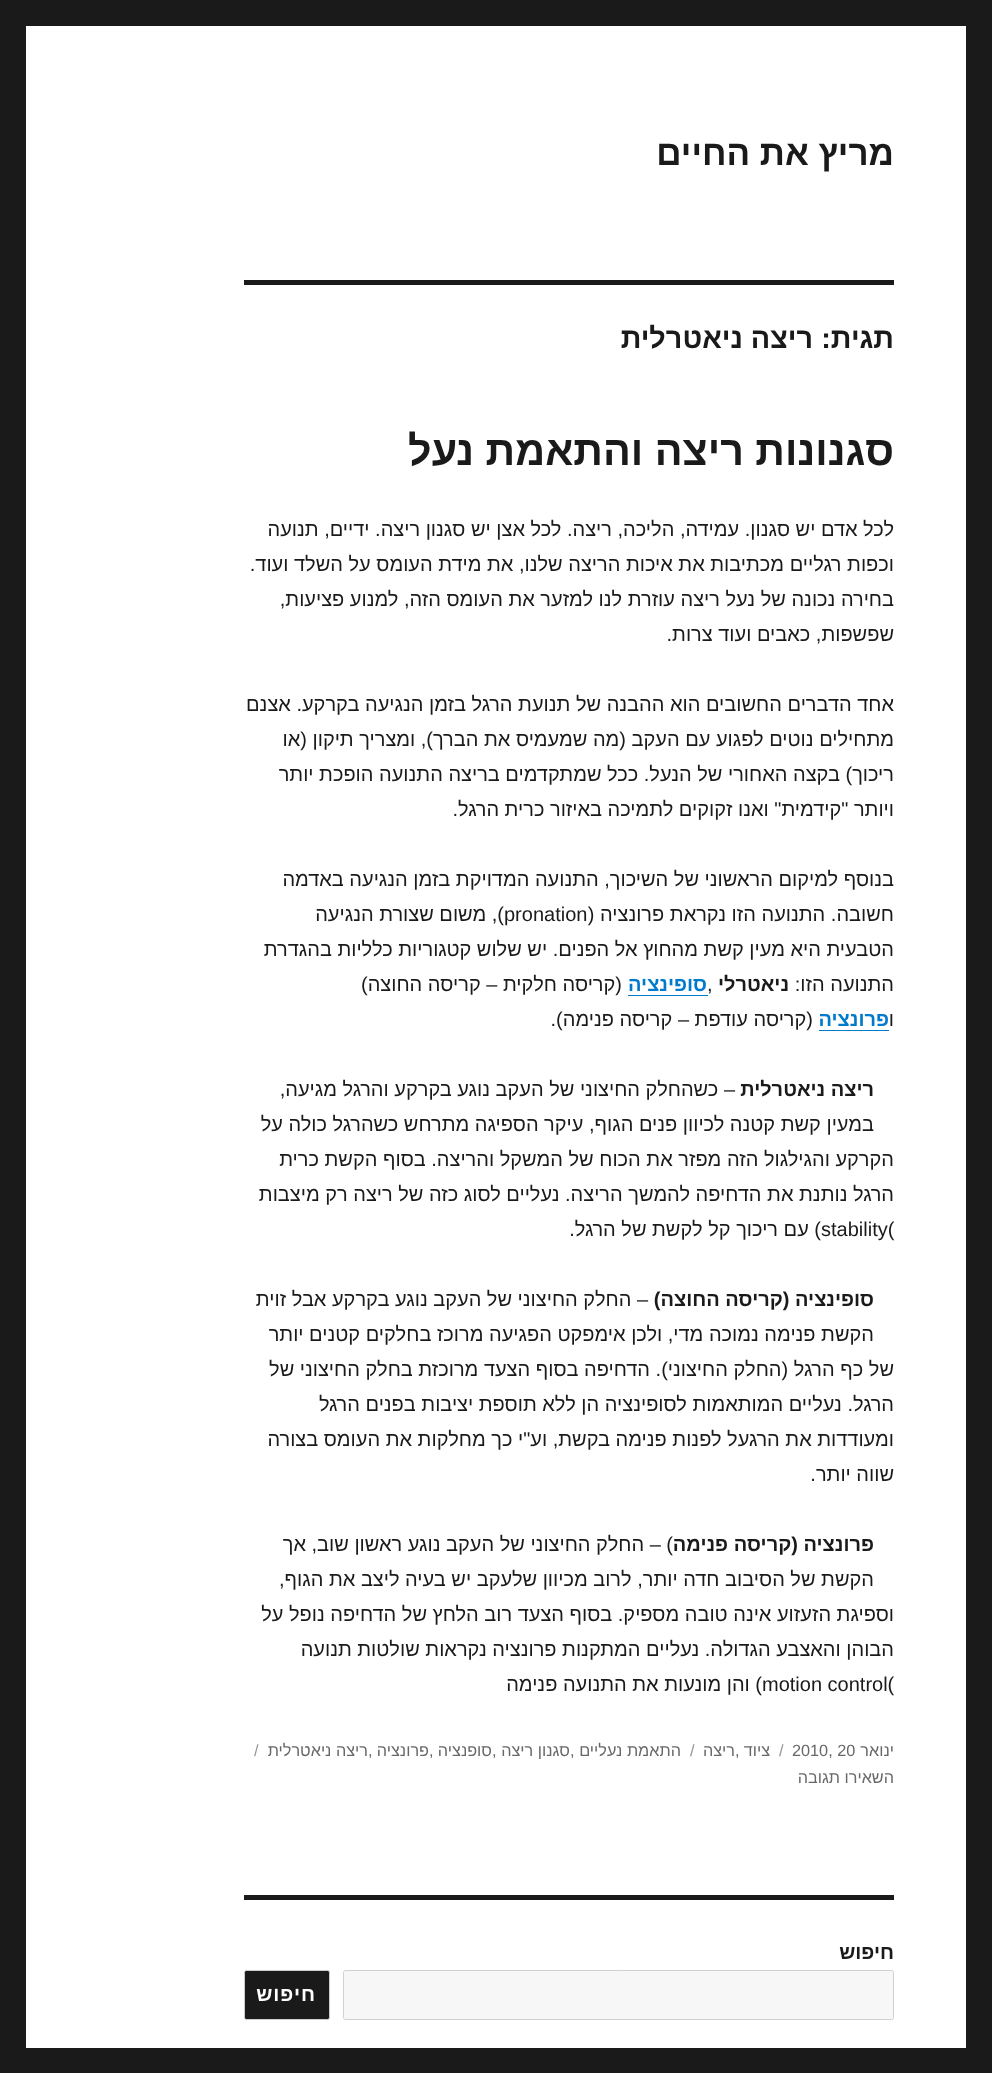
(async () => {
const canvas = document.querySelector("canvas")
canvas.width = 992
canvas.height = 2073
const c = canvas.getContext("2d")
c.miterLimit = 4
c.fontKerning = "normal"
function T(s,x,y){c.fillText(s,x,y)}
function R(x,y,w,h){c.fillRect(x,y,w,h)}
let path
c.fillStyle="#1a1a1a"
R(0,0,992,2073)
c.fillStyle="#fff"
R(26,26,940,2022)
c.direction="rtl"
c.font="bold 35px Liberation Sans"
c.fillStyle="#1a1a1a"
T("מריץ את החיים",894,165)
R(244,280,650,5)
c.font="bold 28.75px Liberation Sans"
T("תגית:",894,348)
T("ריצה ניאטרלית",813,348)
c.font="bold 41.25px Liberation Sans"
T("סגנונות ריצה והתאמת נעל",894,465)
c.font="20px Liberation Sans"
T("לכל אדם יש סגנון. עמידה, הליכה, ריצה. לכל אצן יש סגנון ריצה. ידיים, תנועה",894,536)
T("וכפות רגליים מכתיבות את איכות הריצה שלנו, את מידת העומס על השלד ועוד.",894,571)
T("בחירה נכונה של נעל ריצה עוזרת לנו למזער את העומס הזה, למנוע פציעות,",894,606)
T("שפשפות, כאבים ועוד צרות.",894,641)
T("אחד הדברים החשובים הוא ההבנה של תנועת הרגל בזמן הנגיעה בקרקע. אצנם",894,711)
T("מתחילים נוטים לפגוע עם העקב (מה שמעמיס את הברך), ומצריך תיקון (או",894,746)
T("ריכוך) בקצה האחורי של הנעל. ככל שמתקדמים בריצה התנועה הופכת יותר",894,781)
T("ויותר \"קידמית\" ואנו זקוקים לתמיכה באיזור כרית הרגל.",894,816)
T("בנוסף למיקום הראשוני של השיכוך, התנועה המדויקת בזמן הנגיעה באדמה",894,886)
T("חשובה. התנועה הזו נקראת פרונציה (",894,921)
c.direction="ltr"
T("pronation",504,921)
c.direction="rtl"
T("), משום שצורת הנגיעה",504,921)
T("הטבעית היא מעין קשת מהחוץ אל הפנים. יש שלוש קטגוריות כלליות בהגדרת",894,956)
T("התנועה הזו:",894,991)
c.font="bold 20px Liberation Sans"
T("ניאטרלי",789,991)
c.direction="ltr"
c.font="20px Liberation Sans"
T(",",707,991)
c.direction="rtl"
c.font="bold 20px Liberation Sans"
c.fillStyle="#007acc"
T("סופינציה",707,991)
path = new Path2D("M628 995v1h80v-21v20z")
c.fill(path)
c.font="20px Liberation Sans"
c.fillStyle="#1a1a1a"
T("(קריסה חלקית – קריסה החוצה)",622,991)
T("ו",894,1026)
c.font="bold 20px Liberation Sans"
c.fillStyle="#007acc"
T("פרונציה",889,1026)
path = new Path2D("M819 1030v1h70v-21v20z")
c.fill(path)
c.font="20px Liberation Sans"
c.fillStyle="#1a1a1a"
T("(קריסה עודפת – קריסה פנימה).",813,1026)
c.font="bold 20px Liberation Sans"
T("ריצה ניאטרלית",874,1096)
c.font="20px Liberation Sans"
T("– כשהחלק החיצוני של העקב נוגע בקרקע והרגל מגיעה,",735,1096)
T("במעין קשת קטנה לכיוון פנים הגוף, עיקר הספיגה מתרחש כשהרגל כולה על",874,1131)
T("הקרקע והגילגול הזה מפזר את הכוח של המשקל והריצה. בסוף הקשת כרית",894,1166)
T("הרגל נותנת את הדחיפה להמשך הריצה. נעליים לסוג כזה של ריצה רק מיצבות",894,1201)
c.direction="ltr"
T("stability(",821,1236)
c.direction="rtl"
T(") עם ריכוך קל לקשת של הרגל.",821,1236)
c.font="bold 20px Liberation Sans"
T("סופינציה (קריסה החוצה)",874,1306)
c.font="20px Liberation Sans"
T("– החלק החיצוני של העקב נוגע בקרקע אבל זוית",648,1306)
T("הקשת פנימה נמוכה מדי, ולכן אימפקט הפגיעה מרוכז בחלקים קטנים יותר",874,1341)
T("של כף הרגל (החלק החיצוני). הדחיפה בסוף הצעד מרוכזת בחלק החיצוני של",894,1376)
T("הרגל. נעליים המותאמות לסופינציה הן ללא תוספת יציבות בפנים הרגל",894,1411)
T("ומעודדות את הרגעל לפנות פנימה בקשת, וע\"י כך מחלקות את העומס בצורה",894,1446)
T("שווה יותר.",894,1481)
c.font="bold 20px Liberation Sans"
T("פרונציה (קריסה פנימה",874,1551)
c.font="20px Liberation Sans"
T(") – החלק החיצוני של העקב נוגע ראשון שוב, אך",673,1551)
T("הקשת של הסיבוב חדה יותר, לרוב מכיוון שלעקב יש בעיה ליצב את הגוף,",874,1586)
T("וספיגת הזעזוע אינה טובה מספיק. בסוף הצעד רוב הלחץ של הדחיפה נופל על",894,1621)
T("הבוהן והאצבע הגדולה. נעליים המתקנות פרונציה נקראות שולטות תנועה",894,1656)
c.direction="ltr"
T("motion control(",762,1691)
c.direction="rtl"
T(") והן מונעות את התנועה פנימה",762,1691)
c.font="16.25px Liberation Sans"
c.fillStyle="#686868"
T("ינואר",894,1756)
c.direction="ltr"
T("2010, 20",792,1756)
c.fillStyle="#959595"
T("/",779,1756)
c.direction="rtl"
c.fillStyle="#686868"
T("ציוד",770,1756)
T("ריצה",735,1756)
c.direction="ltr"
c.fillStyle="#959595"
T("/",690,1756)
c.fillStyle="#686868"
T(",",735,1756)
c.direction="rtl"
T("התאמת נעליים",681,1756)
c.direction="ltr"
T(",",570,1756)
c.direction="rtl"
T("סגנון ריצה",570,1756)
c.direction="ltr"
T(",",492,1756)
c.direction="rtl"
T("סופנציה",492,1756)
c.direction="ltr"
T(",",429,1756)
c.direction="rtl"
T("פרונציה",429,1756)
c.direction="ltr"
T(",",368,1756)
c.direction="rtl"
T("ריצה ניאטרלית",368,1756)
c.direction="ltr"
c.fillStyle="#959595"
T("/",254,1756)
c.direction="rtl"
c.fillStyle="#686868"
T("השאירו תגובה",894,1783)
c.fillStyle="#1a1a1a"
R(244,1895,650,5)
c.font="bold 20px Liberation Sans"
T("חיפוש",894,1959)
c.fillStyle="#f7f7f7"
c.beginPath()
c.roundRect(343.5,1970.5,550,49,2)
c.fill()
c.strokeStyle="#d1d1d1"
c.stroke()
c.fillStyle="#1a1a1a"
c.beginPath()
c.roundRect(244.5,1970.5,85,49,2)
c.fill()
c.strokeStyle="#ccc"
c.stroke()
c.letterSpacing="1px"
c.fillStyle="#fff"
T("חיפוש",316,2001)
})()
